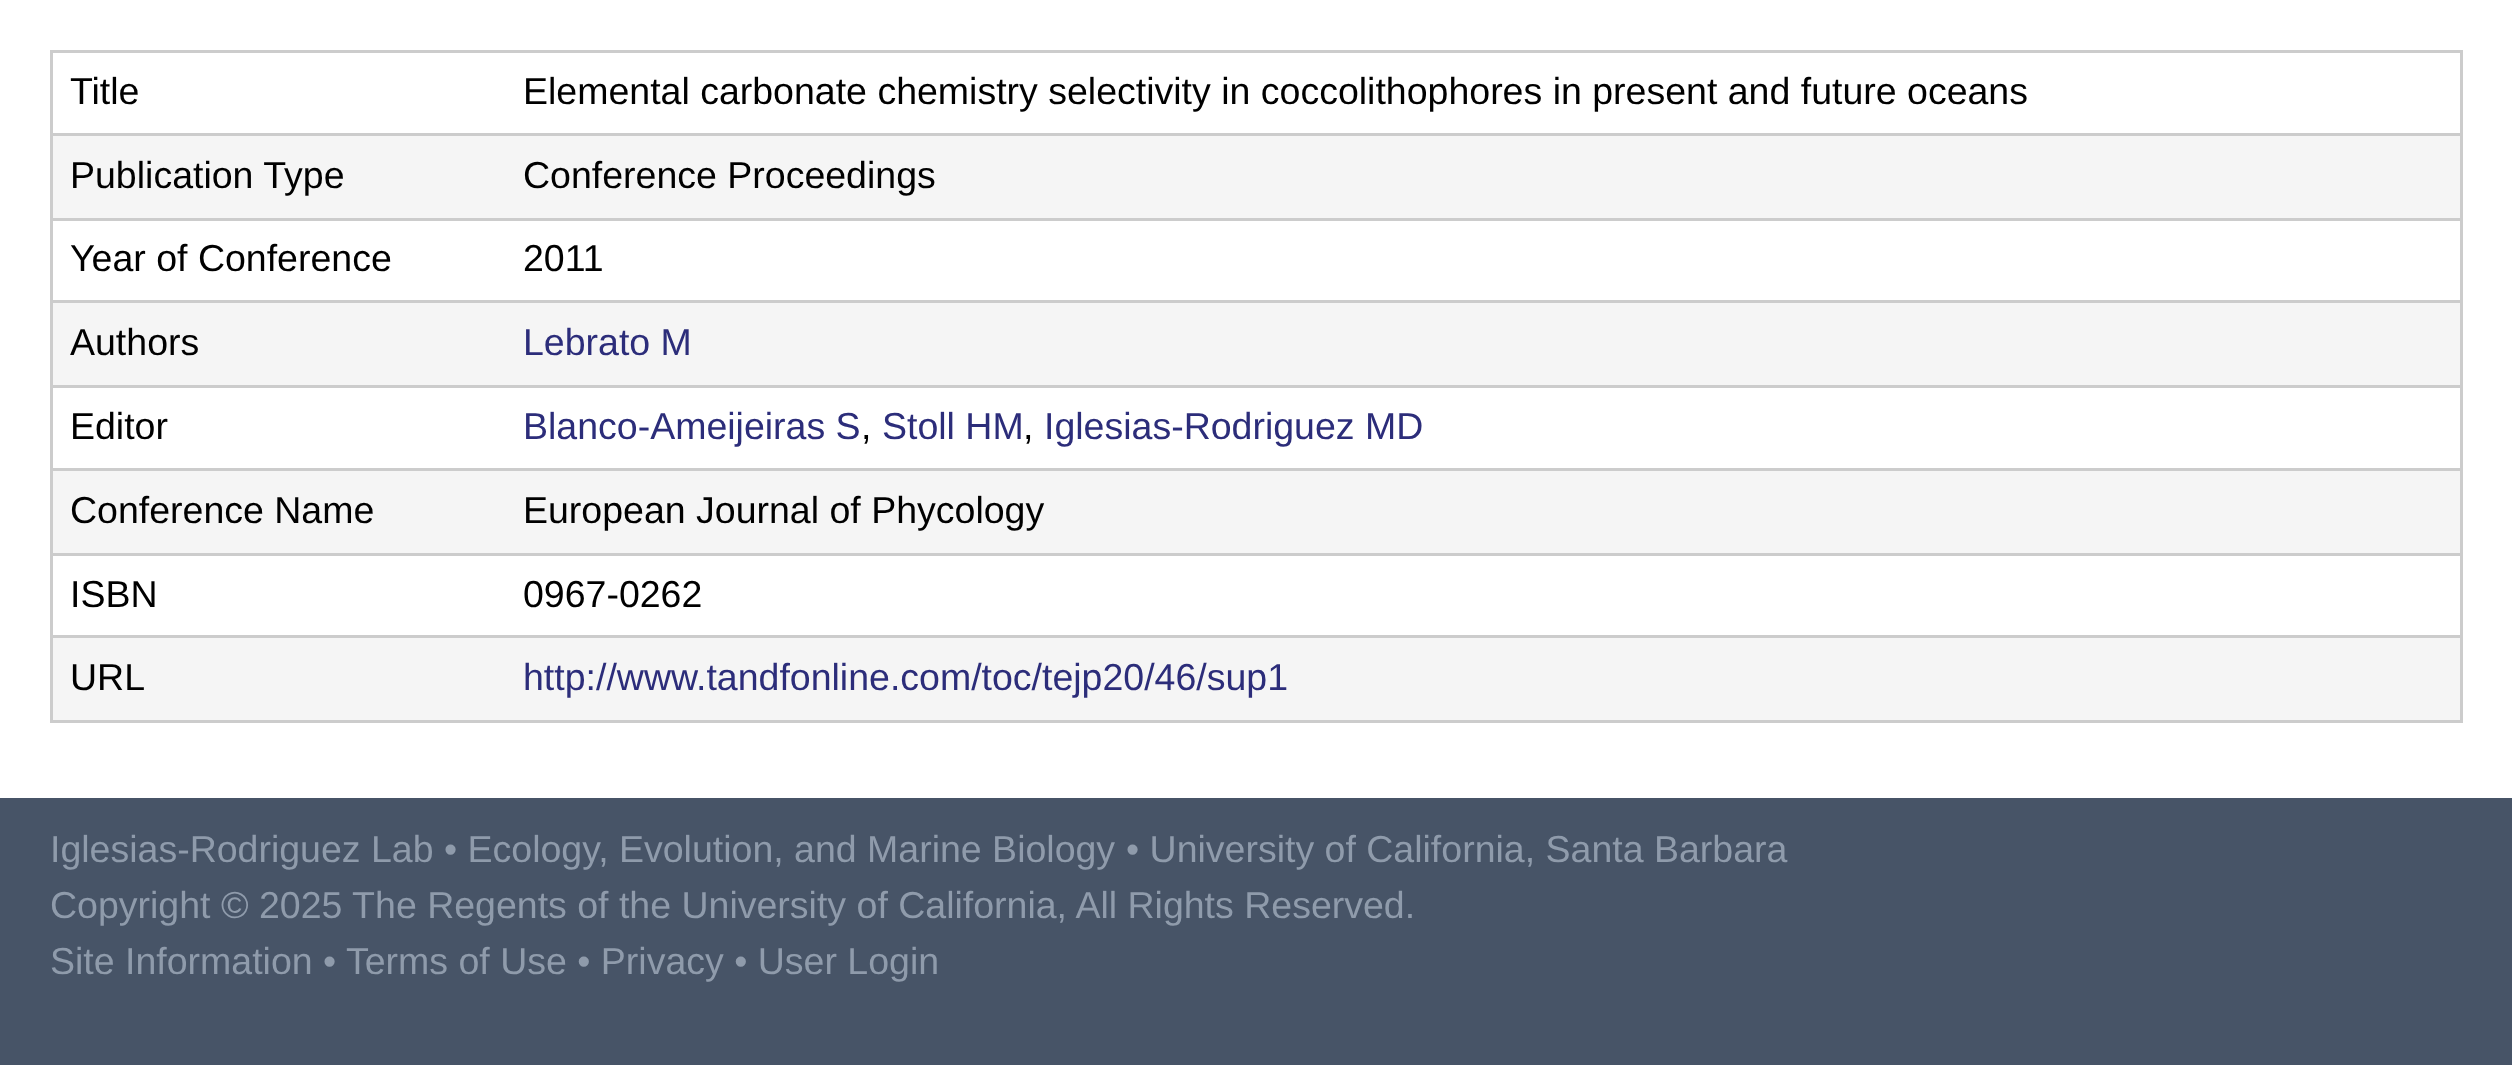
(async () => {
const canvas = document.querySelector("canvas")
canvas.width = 2512
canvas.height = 1065
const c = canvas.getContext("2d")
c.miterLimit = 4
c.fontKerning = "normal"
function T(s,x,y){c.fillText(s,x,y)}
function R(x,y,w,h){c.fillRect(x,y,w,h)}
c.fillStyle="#475467"
R(0,0,2512,1065)
c.fillStyle="#fff"
R(0,0,2512,798)
c.fillStyle="#ccc"
R(50,50,2413,3)
R(2460,50,3,673)
R(50,720,2413,3)
R(50,50,3,673)
c.font="37.5px Liberation Sans"
c.fillStyle="#000"
T("Title",70,104)
T("Elemental carbonate chemistry selectivity in coccolithophores in present and future oceans",523,104)
c.fillStyle="#f5f5f5"
R(53,136,2407,82)
c.fillStyle="#ccc"
R(50,133,2413,3)
c.fillStyle="#000"
T("Publication Type",70,188)
T("Conference Proceedings",523,188)
c.fillStyle="#ccc"
R(50,218,2413,3)
c.fillStyle="#000"
T("Year of Conference",70,271)
T("2011",523,271)
c.fillStyle="#f5f5f5"
R(53,303,2407,82)
c.fillStyle="#ccc"
R(50,300,2413,3)
c.fillStyle="#000"
T("Authors",70,355)
c.fillStyle="#2c2d7a"
T("Lebrato M",523,355)
c.fillStyle="#ccc"
R(50,385,2413,3)
c.fillStyle="#000"
T("Editor",70,439)
c.fillStyle="#2c2d7a"
T("Blanco-Ameijeiras S",523,439)
c.fillStyle="#000"
T(",",861,439)
c.fillStyle="#2c2d7a"
T("Stoll HM",882,439)
c.fillStyle="#000"
T(",",1023,439)
c.fillStyle="#2c2d7a"
T("Iglesias-Rodriguez MD",1044,439)
c.fillStyle="#f5f5f5"
R(53,471,2407,82)
c.fillStyle="#ccc"
R(50,468,2413,3)
c.fillStyle="#000"
T("Conference Name",70,523)
T("European Journal of Phycology",523,523)
c.fillStyle="#ccc"
R(50,553,2413,3)
c.fillStyle="#000"
T("ISBN",70,607)
T("0967-0262",523,607)
c.fillStyle="#f5f5f5"
R(53,638,2407,82)
c.fillStyle="#ccc"
R(50,635,2413,3)
c.fillStyle="#000"
T("URL",70,690)
c.fillStyle="#2c2d7a"
T("http://www.tandfonline.com/toc/tejp20/46/sup1",523,690)
c.fillStyle="#8f9bab"
T("Iglesias-Rodriguez Lab • Ecology, Evolution, and Marine Biology",50,862)
T("• University of California, Santa Barbara",1126,862)
T("Copyright © 2025 The Regents of the University of California, All Rights Reserved.",50,918)
T("Site Information •",50,974)
T("Terms of Use • Privacy • User Login",346,974)
})()
